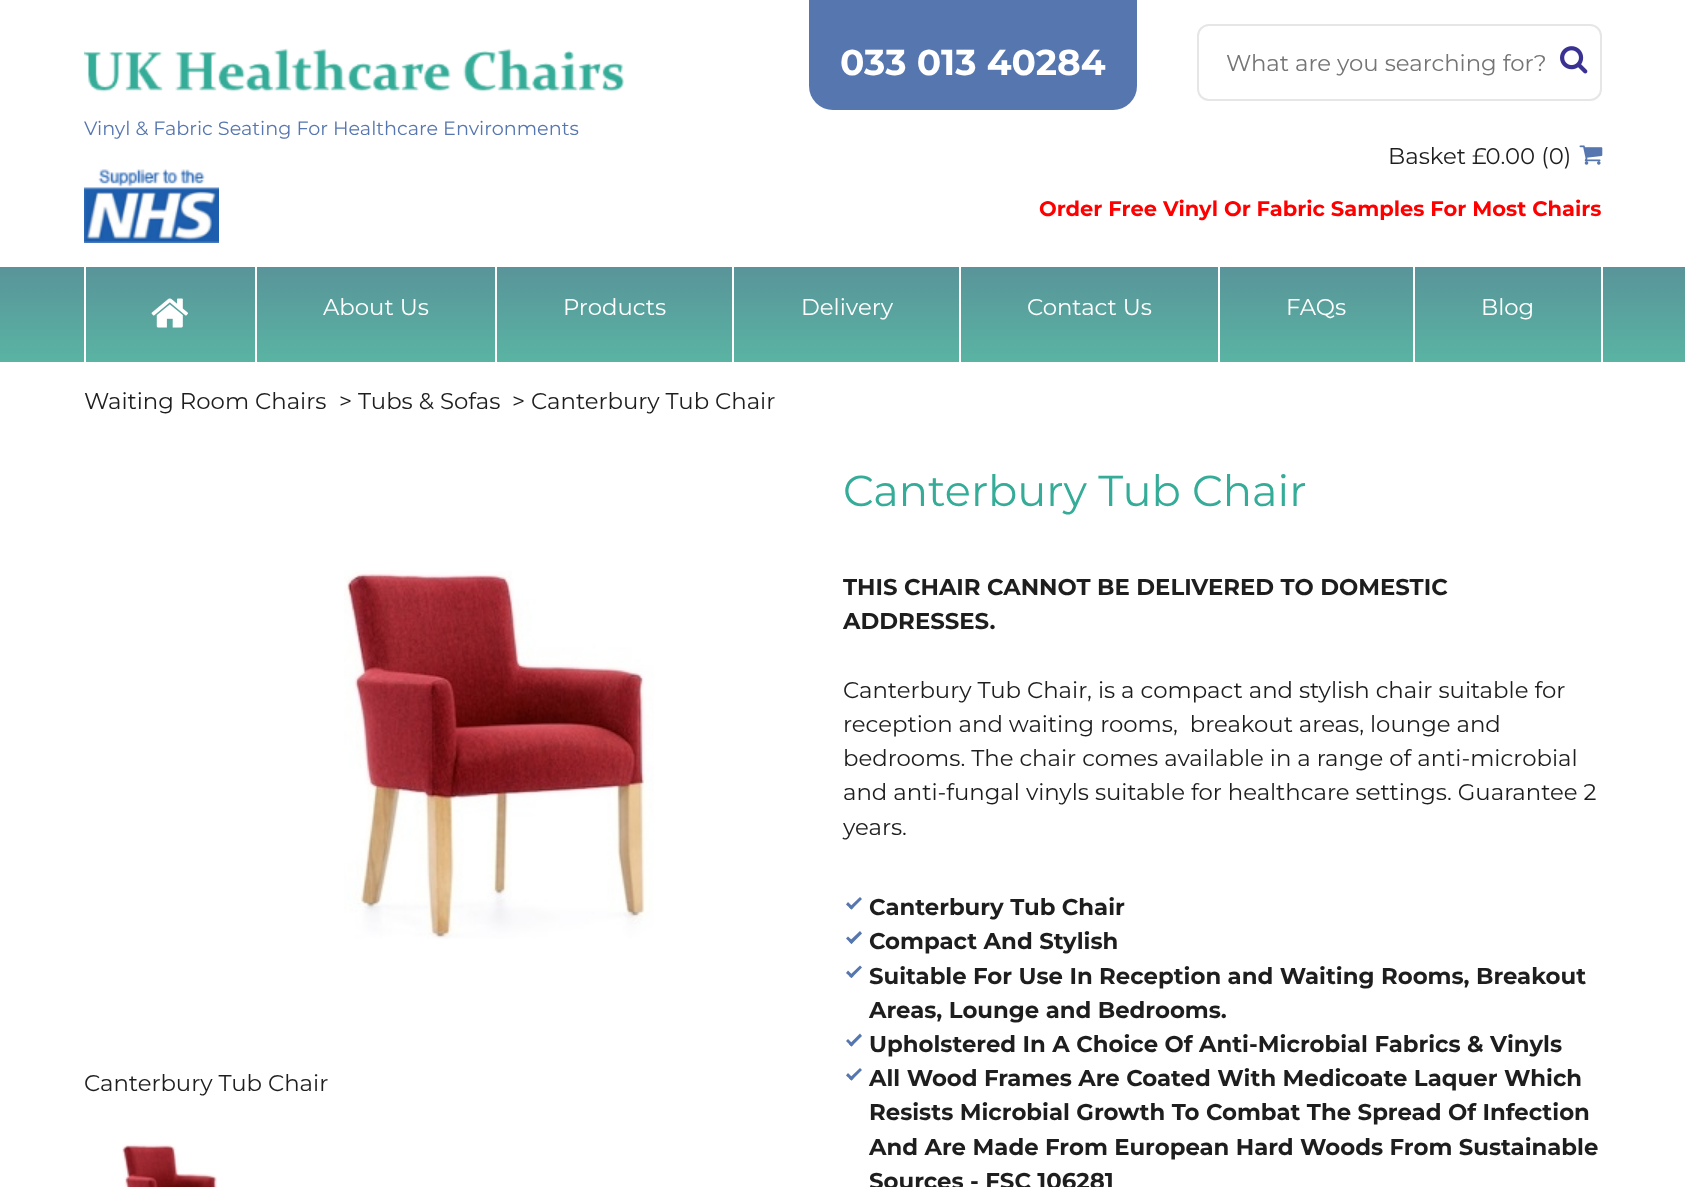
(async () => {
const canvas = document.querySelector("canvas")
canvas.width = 1685
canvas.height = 1187
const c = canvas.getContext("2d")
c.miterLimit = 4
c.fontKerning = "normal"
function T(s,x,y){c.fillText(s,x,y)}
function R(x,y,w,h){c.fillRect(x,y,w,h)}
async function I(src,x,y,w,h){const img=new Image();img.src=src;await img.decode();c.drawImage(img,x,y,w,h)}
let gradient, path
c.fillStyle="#fff"
R(0,0,1685,1187)
c.fillStyle="#5676af"
c.beginPath()
c.roundRect(809,0,328,110,[0,0,24,24])
c.fill()
c.font="bold 36px Montserrat"
c.fillStyle="#fff"
T("033 013 40284",840,75)
c.beginPath()
c.roundRect(1198,25,403,75,11)
c.strokeStyle="#e6e6e6"
c.lineWidth=2
c.stroke()
c.font="22.8px Montserrat"
c.fillStyle="#757575"
T("What are you searching for?",1226,71)
await I("1.png",1560,46,28,28)
await I("2.png",84,48,540,44)
c.font="19.2px Montserrat"
c.fillStyle="#5676af"
T("Vinyl & Fabric Seating For Healthcare Environments",84,135)
c.font="22.8px Montserrat"
c.fillStyle="#1e1e1e"
T("Basket £0.00 (0)",1388,164)
await I("3.png",1579,145,24,20)
await I("4.png",84,169,135,74)
c.font="bold 21px Montserrat"
c.fillStyle="#f00"
T("Order Free Vinyl Or Fabric Samples For Most Chairs",1039,216)
gradient = c.createLinearGradient(843,267,843,362)
gradient.addColorStop(0,"#59949a")
gradient.addColorStop(1,"#59b4a3")
c.fillStyle = gradient
R(0,267,1685,95)
c.fillStyle="#fff"
R(84,267,2,95)
await I("5.png",151,298,37,30)
R(255,267,2,95)
c.font="22.8px Montserrat"
T("About Us",323,315)
R(495,267,2,95)
T("Products",563,315)
R(732,267,2,95)
T("Delivery",801,315)
R(959,267,2,95)
T("Contact Us",1027,315)
R(1218,267,2,95)
T("FAQs",1286,315)
R(1601,267,2,95)
R(1413,267,2,95)
T("Blog",1481,315)
c.fillStyle="#1e1e1e"
T("Waiting Room Chairs",84,409)
T("> Tubs & Sofas",339,409)
T("> Canterbury Tub Chair",512,409)
await I("6.png",344,570,310,369)
T("Canterbury Tub Chair",84,1091)
await I("7.png",122,1144,95,43)
c.font="43.25px Montserrat"
c.fillStyle="#34ac98"
T("Canterbury Tub Chair",843,506)
c.font="bold 22.8px Montserrat"
c.fillStyle="#1e1e1e"
T("THIS CHAIR CANNOT BE DELIVERED TO DOMESTIC",843,595)
T("ADDRESSES.",843,629)
c.font="22.8px Montserrat"
T("Canterbury Tub Chair, is a compact and stylish chair suitable for",843,698)
T("reception and waiting rooms,  breakout areas, lounge and",843,732)
T("bedrooms. The chair comes available in a range of anti-microbial",843,766)
T("and anti-fungal vinyls suitable for healthcare settings. Guarantee 2",843,800)
T("years.",843,835)
c.fillStyle="#5676af"
path = new Path2D("M860 897l2 2l-10.5 10.5l-2.5-2z")
c.fill(path)
path = new Path2D("M848 902l5.5 5.5l-2 2l-5.5-5z")
c.fill(path)
c.font="bold 22.8px Montserrat"
c.fillStyle="#1e1e1e"
T("Canterbury Tub Chair",869,915)
c.fillStyle="#5676af"
path = new Path2D("M860 931l2 2.5l-10.5 10.5l-2.5-2.5z")
c.fill(path)
path = new Path2D("M848 936.5l5.5 5l-2 2.5l-5.5-5.5z")
c.fill(path)
c.fillStyle="#1e1e1e"
T("Compact And Stylish",869,949)
c.fillStyle="#5676af"
path = new Path2D("M860 965.5l2 2l-10.5 10.5l-2.5-2z")
c.fill(path)
path = new Path2D("M848 970.5l5.5 5.5l-2 2l-5.5-5z")
c.fill(path)
c.fillStyle="#1e1e1e"
T("Suitable For Use In Reception and Waiting Rooms, Breakout",869,984)
T("Areas, Lounge and Bedrooms.",869,1018)
c.fillStyle="#5676af"
path = new Path2D("M860 1033.5l2 2.5l-10.5 10.5l-2.5-2z")
c.fill(path)
path = new Path2D("M848 1039l5.5 5.5l-2 2l-5.5-5.5z")
c.fill(path)
c.fillStyle="#1e1e1e"
T("Upholstered In A Choice Of Anti-Microbial Fabrics & Vinyls",869,1052)
c.fillStyle="#5676af"
path = new Path2D("M860 1068l2 2l-10.5 10.5l-2.5-2z")
c.fill(path)
path = new Path2D("M848 1073l5.5 5.5l-2 2l-5.5-5z")
c.fill(path)
c.fillStyle="#1e1e1e"
T("All Wood Frames Are Coated With Medicoate Laquer Which",869,1086)
T("Resists Microbial Growth To Combat The Spread Of Infection",869,1120)
T("And Are Made From European Hard Woods From Sustainable",869,1155)
T("Sources - FSC 106281",869,1189)
})()
